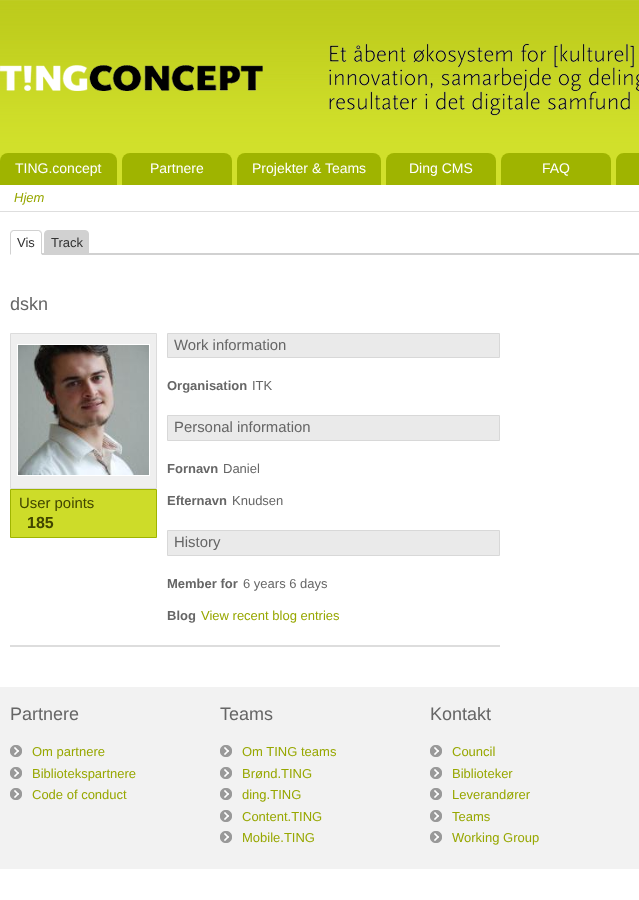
(async () => {
const canvas = document.querySelector("canvas")
canvas.width = 639
canvas.height = 900
const c = canvas.getContext("2d")
c.miterLimit = 4
c.fontKerning = "normal"
function T(s,x,y){c.fillText(s,x,y)}
function R(x,y,w,h){c.fillRect(x,y,w,h)}
async function I(src,x,y,w,h){const img=new Image();img.src=src;await img.decode();c.drawImage(img,x,y,w,h)}
let path
c.fillStyle="#fff"
R(0,0,639,900)
await I("1.png",0,0,639,185)
await I("2.png",329,43,310,73)
await I("3.png",0,65,263,26)
c.fillStyle="#9fb400"
c.beginPath()
c.roundRect(0,153,117,32,[8,8,0,0])
c.fill()
c.font="14px Liberation Sans"
c.fillStyle="#fff"
T("TING.concept",15,173)
c.fillStyle="#9fb400"
c.beginPath()
c.roundRect(122,153,110,32,[8,8,0,0])
c.fill()
c.fillStyle="#fff"
T("Partnere",150,173)
c.fillStyle="#9fb400"
c.beginPath()
c.roundRect(237,153,144,32,[8,8,0,0])
c.fill()
c.fillStyle="#fff"
T("Projekter & Teams",252,173)
c.fillStyle="#9fb400"
c.beginPath()
c.roundRect(386,153,110,32,[8,8,0,0])
c.fill()
c.fillStyle="#fff"
T("Ding CMS",409,173)
c.fillStyle="#9fb400"
c.beginPath()
c.roundRect(501,153,110,32,[8,8,0,0])
c.fill()
c.fillStyle="#fff"
T("FAQ",542,173)
c.fillStyle="#9fb400"
path = new Path2D("M624 153h15c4.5 0 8 3.5 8 8v24h-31v-24c0-4.5 3.5-8 8-8z")
c.fill(path)
c.fillStyle="#dedede"
R(0,211,639,1)
c.font="italic 13px Liberation Sans"
c.fillStyle="#97a700"
T("Hjem",14,202)
c.fillStyle="#d1d1d1"
R(42,253,597,2)
path = new Path2D("M14 230c-1 0-2 .5-3 1l1 1c.5-.5 1-1 2-1h24c1 0 1.5 .5 2 1l1-1c-1-.5-2-1-3-1z")
c.fill(path)
path = new Path2D("M42 255v-21c0-1-.5-2-1-3l-1 1c.5 .5 1 1 1 2v20z")
c.fill(path)
c.fillStyle="#fff"
path = new Path2D("M42 255l-1-1h-30l-1 1z")
c.fill(path)
c.fillStyle="#d1d1d1"
path = new Path2D("M10 255l1-1v-20c0-1 .5-1.5 1-2l-1-1c-.5 1-1 2-1 3z")
c.fill(path)
c.font="13px Liberation Sans"
c.fillStyle="#323232"
T("Vis",17,247)
c.fillStyle="#d1d1d1"
c.beginPath()
c.roundRect(44.5,230.5,44,24,[3.5,3.5,0,0])
c.fill()
c.strokeStyle="#d1d1d1"
c.stroke()
c.fillStyle="#323232"
T("Track",51,247)
c.fillStyle="#ddd"
R(10,645,490,2)
c.font="18px Liberation Sans"
c.fillStyle="#666"
T("dskn",10,310)
c.fillStyle="#efefef"
c.beginPath()
c.rect(10.5,333.5,146,155)
c.fill()
c.strokeStyle="#dcdcdc"
c.stroke()
c.strokeStyle="#fff"
c.strokeRect(17.5,344.5,132,131)
await I("4.png",18,345,131,130)
c.fillStyle="#cddc29"
c.beginPath()
c.rect(10.5,489.5,146,48)
c.fill()
c.strokeStyle="#9fb400"
c.stroke()
c.font="14.9px Liberation Sans"
c.fillStyle="#414600"
T("User points",19,508)
c.font="bold 16px Liberation Sans"
T("185",27,528)
c.fillStyle="#eaeaea"
c.beginPath()
c.rect(167.5,333.5,332,24)
c.fill()
c.strokeStyle="#d8d8d8"
c.stroke()
c.font="14.9px Liberation Sans"
c.fillStyle="#666"
T("Work information",174,350)
c.font="bold 13px Liberation Sans"
T("Organisation",167,390)
c.font="13px Liberation Sans"
T("ITK",252,390)
c.fillStyle="#eaeaea"
c.beginPath()
c.rect(167.5,415.5,332,25)
c.fill()
c.stroke()
c.font="14.9px Liberation Sans"
c.fillStyle="#666"
T("Personal information",174,432)
c.font="bold 13px Liberation Sans"
T("Fornavn",167,473)
c.font="13px Liberation Sans"
T("Daniel",223,473)
c.font="bold 13px Liberation Sans"
T("Efternavn",167,505)
c.font="13px Liberation Sans"
T("Knudsen",232,505)
c.fillStyle="#eaeaea"
c.beginPath()
c.rect(167.5,530.5,332,25)
c.fill()
c.stroke()
c.font="14.9px Liberation Sans"
c.fillStyle="#666"
T("History",174,547)
c.font="bold 13px Liberation Sans"
T("Member for",167,588)
c.font="13px Liberation Sans"
T("6 years 6 days",243,588)
c.font="bold 13px Liberation Sans"
T("Blog",167,620)
c.font="13px Liberation Sans"
c.fillStyle="#97a700"
T("View recent blog entries",201,620)
c.fillStyle="#f2f2f2"
R(0,687,639,182)
c.font="18px Liberation Sans"
c.fillStyle="#666"
T("Partnere",10,720)
await I("5.png",10,745,12,12)
c.font="13px Liberation Sans"
c.fillStyle="#97a700"
T("Om partnere",32,756)
await I("5.png",10,767,12,12)
T("Bibliotekspartnere",32,778)
await I("5.png",10,788,12,12)
T("Code of conduct",32,799)
c.font="18px Liberation Sans"
c.fillStyle="#666"
T("Teams",220,720)
await I("5.png",220,745,12,12)
c.font="13px Liberation Sans"
c.fillStyle="#97a700"
T("Om TING teams",242,756)
await I("5.png",220,767,12,12)
T("Brønd.TING",242,778)
await I("5.png",220,788,12,12)
T("ding.TING",242,799)
await I("5.png",220,810,12,12)
T("Content.TING",242,821)
await I("5.png",220,831,12,12)
T("Mobile.TING",242,842)
c.font="18px Liberation Sans"
c.fillStyle="#666"
T("Kontakt",430,720)
await I("5.png",430,745,12,12)
c.font="13px Liberation Sans"
c.fillStyle="#97a700"
T("Council",452,756)
await I("5.png",430,767,12,12)
T("Biblioteker",452,778)
await I("5.png",430,788,12,12)
T("Leverandører",452,799)
await I("5.png",430,810,12,12)
T("Teams",452,821)
await I("5.png",430,831,12,12)
T("Working Group",452,842)
})()
